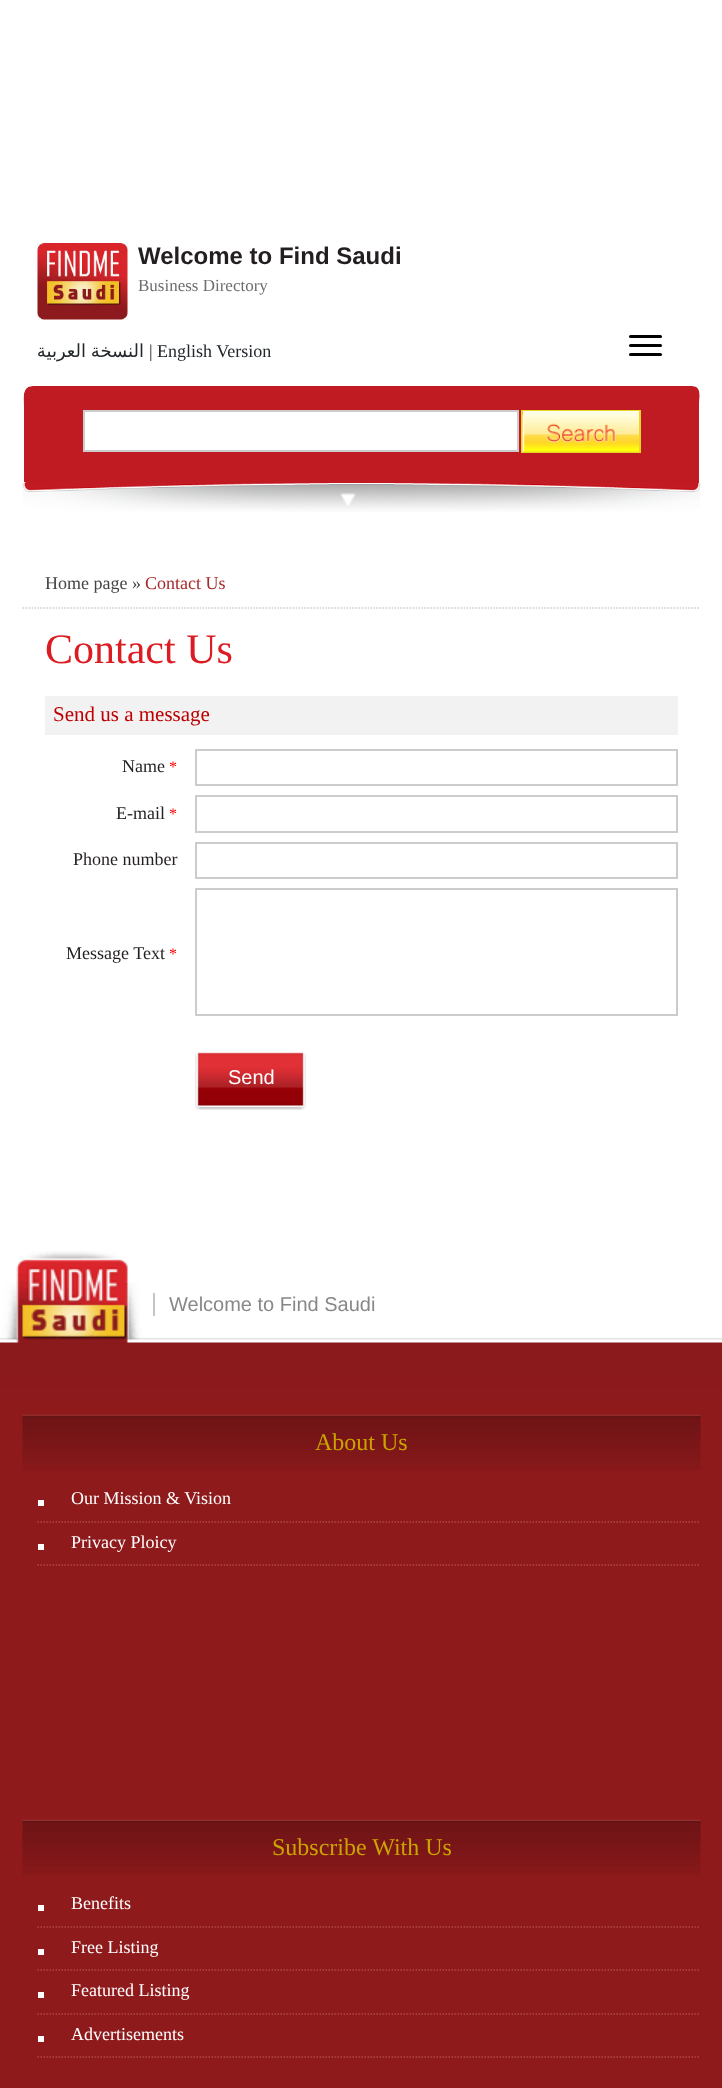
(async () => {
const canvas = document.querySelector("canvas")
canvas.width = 722
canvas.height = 2088
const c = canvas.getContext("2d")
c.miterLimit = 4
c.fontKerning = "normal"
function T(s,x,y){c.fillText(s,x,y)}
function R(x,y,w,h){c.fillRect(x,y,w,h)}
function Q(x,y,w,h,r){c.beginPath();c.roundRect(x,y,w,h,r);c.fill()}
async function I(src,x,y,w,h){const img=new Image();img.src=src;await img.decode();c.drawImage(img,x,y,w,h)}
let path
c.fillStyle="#fff"
R(0,0,722,2088)
await I("1.png",37,243,91,77)
c.font="bold 24px Liberation Sans"
c.fillStyle="#231f20"
T("Welcome to Find Saudi",138,264)
c.font="17px Liberation Serif"
c.fillStyle="#6d6e71"
T("Business Directory",138,291)
c.fillStyle="#000"
Q(629,335,33,3,1.5)
Q(629,344,33,3,1.5)
Q(629,353,33,3,1.5)
c.fillStyle="#c01b22"
path = new Path2D("M33 386h659c11 0 7 14 7 20v77h-673l-2-1v-74c0-8-3-22 9-22z")
c.fill(path)
c.fillStyle="#fff"
path = new Path2D("M33 382h659c4 0 8 5 8 10v90c0 0 0 1-1 1h-673c-2 0-4-1-4-3v-87c0-6 5-11 11-11zm0 4h659c11 0 7 14 7 20v77h-673l-2-1v-74c0-8-3-22 9-22z")
c.fill(path,"evenodd")
c.beginPath()
c.rect(84,411,434,40)
c.fill()
c.strokeStyle="#ccc"
c.lineWidth=2
c.stroke()
c.strokeStyle="#e6d625"
c.strokeRect(522,411,118,41)
await I("2.png",522,411,117,41)
await I("3.png",22,483,679,29)
await I("4.png",340,493,16,13)
c.wordSpacing="-1px"
c.direction="rtl"
c.font="18px DejaVu Sans"
c.fillStyle="#22272c"
T("النسخة العربية",144,357)
c.wordSpacing="0px"
c.direction="ltr"
c.font="18px Liberation Serif"
T("| English Version",149,357)
path = new Path2D("M22.5 608h678")
c.strokeStyle="#ccc"
c.lineWidth=1.5
c.setLineDash([1.5,1.5])
c.stroke(path)
c.fillStyle="#444"
T("Home page »",45,589)
c.fillStyle="#a52a2a"
T("Contact Us",145,589)
c.font="42px Liberation Serif"
c.fillStyle="#dc1c23"
T("Contact Us",45,663)
c.fillStyle="#f2f2f2"
R(45,696,633,39)
c.font="21px Liberation Serif"
c.fillStyle="#bc0000"
T("Send us a message",53,721)
c.font="18px Liberation Serif"
c.fillStyle="#231f20"
T("Name",122,772)
c.font="16px Liberation Serif"
c.fillStyle="#f00"
T("*",169,772)
c.lineWidth=2
c.setLineDash([])
c.strokeRect(196,750,481,35)
c.font="18px Liberation Serif"
c.fillStyle="#231f20"
T("E-mail",116,819)
c.font="16px Liberation Serif"
c.fillStyle="#f00"
T("*",169,819)
c.strokeRect(196,796,481,36)
c.font="18px Liberation Serif"
c.fillStyle="#231f20"
T("Phone number",73,865)
c.strokeRect(196,843,481,35)
T("Message Text",66,959)
c.font="16px Liberation Serif"
c.fillStyle="#f00"
T("*",169,959)
c.strokeRect(196,889,481,126)
await I("5.png",195,1052,111,58)
c.font="20px Liberation Sans"
c.fillStyle="#fff"
T("Send",228,1084)
await I("6.png",0,1338,722,77)
await I("7.png",0,1251,147,92)
c.fillStyle="#c5c5c5"
R(153,1293,2,23)
c.fillStyle="#888"
T("Welcome to Find Saudi",169,1311)
c.fillStyle="#8e1a1c"
R(0,1415,722,673)
await I("8.png",22,1414,679,57)
c.font="24px Liberation Serif"
c.fillStyle="#cba302"
T("About Us",315,1450)
path = new Path2D("M37.5 1522h663")
c.strokeStyle="#b1474a"
c.lineWidth=1.5
c.setLineDash([1.5,1.5])
c.stroke(path)
c.fillStyle="#fff"
R(38,1500,6,6)
c.font="18px Liberation Serif"
T("Our Mission & Vision",71,1504)
path = new Path2D("M37.5 1565h663")
c.stroke(path)
R(38,1544,6,6)
T("Privacy Ploicy",71,1548)
await I("9.png",22,1819,679,57)
c.font="24px Liberation Serif"
c.fillStyle="#cba302"
T("Subscribe With Us",272,1855)
path = new Path2D("M37.5 1927h663")
c.stroke(path)
c.fillStyle="#fff"
R(38,1905,6,6)
c.font="18px Liberation Serif"
T("Benefits",71,1909)
path = new Path2D("M37.5 1970h663")
c.stroke(path)
R(38,1949,6,6)
T("Free Listing",71,1953)
path = new Path2D("M37.5 2014h663")
c.stroke(path)
R(38,1992,6,6)
T("Featured Listing",71,1996)
path = new Path2D("M37.5 2057h663")
c.stroke(path)
R(38,2036,6,6)
T("Advertisements",71,2040)
})()
